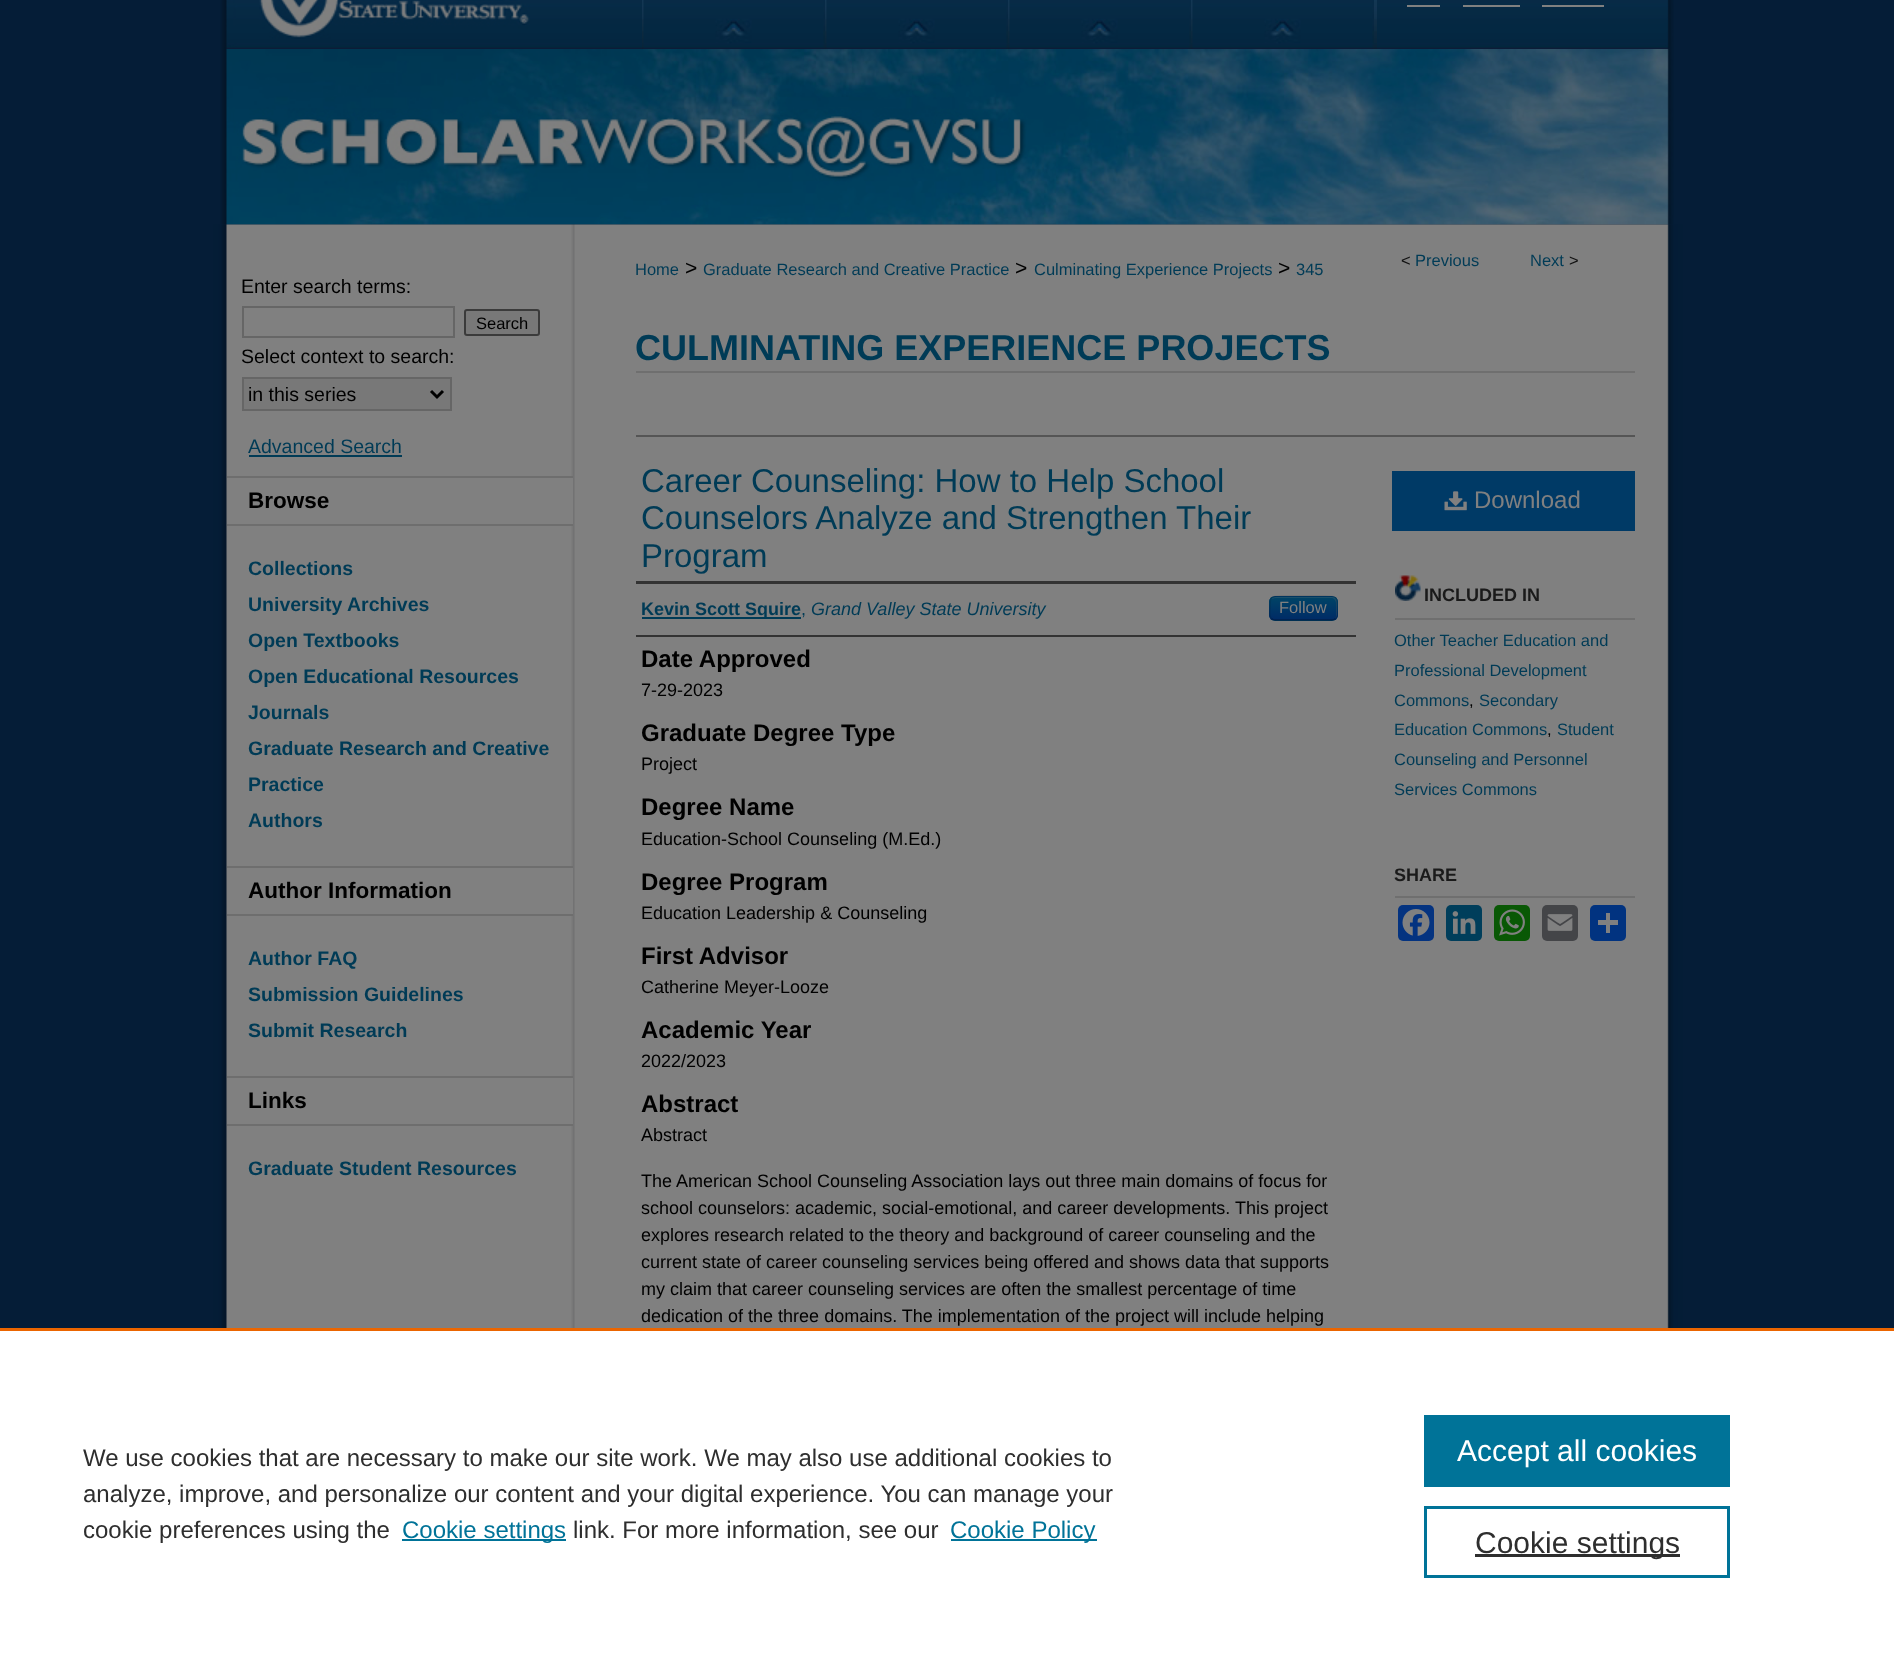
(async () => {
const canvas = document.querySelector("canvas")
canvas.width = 1894
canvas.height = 1657
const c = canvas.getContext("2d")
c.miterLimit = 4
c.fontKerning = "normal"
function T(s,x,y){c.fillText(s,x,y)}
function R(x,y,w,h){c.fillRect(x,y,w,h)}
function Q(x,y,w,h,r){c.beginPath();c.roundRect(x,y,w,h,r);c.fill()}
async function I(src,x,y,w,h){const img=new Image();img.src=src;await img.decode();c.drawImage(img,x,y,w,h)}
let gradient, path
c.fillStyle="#051d37"
R(0,0,1894,1657)
await I("1.png",220,0,1454,49)
await I("2.png",259,0,271,39)
await I("3.png",642,0,2,49)
await I("4.png",643,0,182,49)
await I("3.png",825,0,2,49)
await I("5.png",826,0,182,49)
await I("3.png",1008,0,2,49)
await I("5.png",1009,0,182,49)
await I("3.png",1191,0,2,49)
await I("6.png",1192,0,182,49)
await I("7.png",1374,0,3,49)
c.fillStyle="#808080"
R(1407,5,33,2)
R(1463,5,57,2)
R(1542,5,62,2)
await I("8.png",220,49,1454,176)
await I("9.png",213,224,1470,1104)
c.font="19.5px Liberation Sans"
c.fillStyle="#000"
T("Enter search terms:",241,293)
c.strokeStyle="#666"
c.lineWidth=2
c.strokeRect(243,307,211,30)
c.fillStyle="#787878"
c.beginPath()
c.roundRect(465,310,74,25,2)
c.fill()
c.strokeStyle="#3b3b3b"
c.stroke()
c.font="16.5px Liberation Sans"
c.fillStyle="#000"
T("Search",476,329)
c.font="19.5px Liberation Sans"
T("Select context to search:",241,363)
c.fillStyle="#787878"
c.beginPath()
c.rect(243,378,208,32)
c.fill()
c.strokeStyle="#666"
c.stroke()
path = new Path2D("M431 391l6 6l6-6")
c.strokeStyle="#000"
c.lineWidth=3
c.stroke(path)
c.fillStyle="#000"
T("in this series",248,401)
c.fillStyle="#003b56"
T("Advanced Search",248,453)
R(249,455,153,2)
c.fillStyle="#808080"
R(571,478,2,46)
c.fillStyle="#6e6e6e"
R(227,476,346,2)
R(227,524,346,2)
c.font="bold 22.5px Liberation Sans"
c.fillStyle="#000"
T("Browse",248,508)
c.font="bold 19.5px Liberation Sans"
c.fillStyle="#003b56"
T("Collections",248,575)
T("University Archives",248,611)
T("Open Textbooks",248,647)
T("Open Educational Resources",248,683)
T("Journals",248,719)
T("Graduate Research and Creative",248,755)
T("Practice",248,791)
T("Authors",248,827)
c.fillStyle="#808080"
R(571,868,2,46)
c.fillStyle="#6e6e6e"
R(227,866,346,2)
R(227,914,346,2)
c.font="bold 22.5px Liberation Sans"
c.fillStyle="#000"
T("Author Information",248,898)
c.font="bold 19.5px Liberation Sans"
c.fillStyle="#003b56"
T("Author FAQ",248,965)
T("Submission Guidelines",248,1001)
T("Submit Research",248,1037)
c.fillStyle="#808080"
R(571,1078,2,46)
c.fillStyle="#6e6e6e"
R(227,1076,346,2)
R(227,1124,346,2)
c.font="bold 22.5px Liberation Sans"
c.fillStyle="#000"
T("Links",248,1108)
c.font="bold 19.5px Liberation Sans"
c.fillStyle="#003b56"
T("Graduate Student Resources",248,1175)
c.font="16.5px Liberation Sans"
c.fillStyle="#111"
T("<",1401,266)
c.fillStyle="#003b56"
T("Previous",1415,266)
T("Next",1530,266)
c.fillStyle="#111"
T(">",1569,266)
c.fillStyle="#003b56"
T("Home",635,275)
c.font="21px Liberation Sans"
c.fillStyle="#000"
T(">",685,275)
c.font="16.5px Liberation Sans"
c.fillStyle="#003b56"
T("Graduate Research and Creative Practice",703,275)
c.font="21px Liberation Sans"
c.fillStyle="#000"
T(">",1015,275)
c.font="16.5px Liberation Sans"
c.fillStyle="#003b56"
T("Culminating Experience Projects",1034,275)
c.font="21px Liberation Sans"
c.fillStyle="#000"
T(">",1278,275)
c.font="16.5px Liberation Sans"
c.fillStyle="#003b56"
T("345",1296,275)
c.fillStyle="#6f6f6f"
R(636,371,999,2)
c.font="bold 36px Liberation Sans"
c.fillStyle="#003b56"
T("CULMINATING EXPERIENCE PROJECTS",635,360)
c.fillStyle="#555"
R(636,435,999,2)
c.font="33px Liberation Sans"
c.fillStyle="#003b56"
T("Career Counseling: How to Help School",641,492)
T("Counselors Analyze and Strengthen Their",641,529)
T("Program",641,567)
c.fillStyle="#333"
R(636,581,720,3)
R(636,635,720,2)
c.fillStyle="#003b56"
R(642,617,159,2)
c.font="bold 18px Liberation Sans"
T("Kevin Scott Squire",641,615)
c.font="18px Liberation Sans"
T(",",801,615)
c.font="italic 18px Liberation Sans"
T("Grand Valley State University",811,615)
c.fillStyle="#003a66"
Q(1269,596,69,25,6)
c.save()
c.beginPath()
c.roundRect(1269,596,69,25,6)
c.clip()
gradient = c.createLinearGradient(1304,597,1304,620)
gradient.addColorStop(0,"#046")
gradient.addColorStop(1,"#002b66")
c.fillStyle = gradient
R(1269,597,69,23)
c.restore()
c.fillStyle="#80808033"
path = new Path2D("M1275 598h57c2 0 4 3 4 5v13l-1 3c1-1 2-3 2-4v-13c0-3-2-5-5-5h-56c-2 0-4 1-5 3c1-1 3-2 4-2z")
c.fill(path)
path = new Path2D("M1335.5 618.5c-1 1-2 1.5-3.5 1.5h-57c-1.5 0-2.5-.5-3.5-1.5")
c.strokeStyle="#00000040"
c.lineWidth=1.5
c.stroke(path)
path = new Path2D("M1271.5 618.5c-3-2.5-1.5-7-1.5-10.5c0-13 .5-12 14.5-12h38c14 0 14.5-1 14.5 12c0 3.5 1.5 8-1.5 10.5")
c.strokeStyle="#0000001a"
c.stroke(path)
c.font="16.5px Liberation Sans"
c.fillStyle="#808080"
T("Follow",1279,613)
c.font="bold 24px Liberation Sans"
c.fillStyle="#000"
T("Date Approved",641,667)
c.font="18px Liberation Sans"
T("7-29-2023",641,696)
c.font="bold 24px Liberation Sans"
T("Graduate Degree Type",641,741)
c.font="18px Liberation Sans"
T("Project",641,770)
c.font="bold 24px Liberation Sans"
T("Degree Name",641,815)
c.font="18px Liberation Sans"
T("Education-School Counseling (M.Ed.)",641,845)
c.font="bold 24px Liberation Sans"
T("Degree Program",641,890)
c.font="18px Liberation Sans"
T("Education Leadership & Counseling",641,919)
c.font="bold 24px Liberation Sans"
T("First Advisor",641,964)
c.font="18px Liberation Sans"
T("Catherine Meyer-Looze",641,993)
c.font="bold 24px Liberation Sans"
T("Academic Year",641,1038)
c.font="18px Liberation Sans"
T("2022/2023",641,1067)
c.font="bold 24px Liberation Sans"
T("Abstract",641,1112)
c.font="18px Liberation Sans"
T("Abstract",641,1141)
T("The American School Counseling Association lays out three main domains of focus for",641,1187)
T("school counselors: academic, social-emotional, and career developments. This project",641,1214)
T("explores research related to the theory and background of career counseling and the",641,1241)
T("current state of career counseling services being offered and shows data that supports",641,1268)
T("my claim that career counseling services are often the smallest percentage of time",641,1295)
T("dedication of the three domains. The implementation of the project will include helping",641,1322)
c.fillStyle="#003a66"
R(1392,471,243,60)
await I("10.png",1444,491,23,20)
c.font="24px Liberation Sans"
c.fillStyle="#808080"
T("Download",1474,508)
await I("11.png",1395,575,26,26)
c.fillStyle="#6f6f6f"
R(1395,618,240,2)
c.font="bold 18px Liberation Sans"
c.fillStyle="#1a1a1a"
T("INCLUDED IN",1424,601)
c.font="16.5px Liberation Sans"
c.fillStyle="#003b56"
T("Other Teacher Education and",1394,646)
T("Professional Development",1394,676)
T("Commons",1394,706)
c.fillStyle="#000"
T(",",1469,706)
c.fillStyle="#003b56"
T("Secondary",1479,706)
T("Education Commons",1394,735)
c.fillStyle="#000"
T(",",1547,735)
c.fillStyle="#003b56"
T("Student",1557,735)
T("Counseling and Personnel",1394,765)
T("Services Commons",1394,795)
c.fillStyle="#6f6f6f"
R(1395,896,240,2)
c.font="bold 18px Liberation Sans"
c.fillStyle="#1a1a1a"
T("SHARE",1394,881)
c.fillStyle="#043380"
Q(1398,905,36,36,5)
await I("12.png",1402,909,28,27)
c.fillStyle="#003e5b"
Q(1446,905,36,36,5)
await I("13.png",1452,911,24,23)
c.fillStyle="#095805"
Q(1494,905,36,36,5)
await I("14.png",1499,909,26,27)
c.fillStyle="#444548"
Q(1542,905,36,36,5)
await I("15.png",1547,914,26,17)
c.fillStyle="#013380"
Q(1590,905,36,36,5)
c.fillStyle="#808080"
R(1606,913,4,20)
R(1598,920,20,5)
c.fillStyle="#fff"
R(0,1331,1894,326)
c.fillStyle="#eb6500"
R(0,1328,1894,3)
c.font="24px Liberation Sans"
c.fillStyle="#2e2e2e"
T("We use cookies that are necessary to make our site work. We may also use additional cookies to",83,1466)
T("analyze, improve, and personalize our content and your digital experience. You can manage your",83,1502)
T("cookie preferences using the",83,1538)
c.fillStyle="#007398"
R(402,1539,164,2)
T("Cookie settings",402,1538)
c.fillStyle="#2e2e2e"
T("link. For more information, see our",573,1538)
c.fillStyle="#007398"
R(951,1539,146,2)
T("Cookie Policy",950,1538)
R(1424,1415,306,72)
c.font="30px Liberation Sans"
c.fillStyle="#fff"
T("Accept all cookies",1457,1461)
c.strokeStyle="#007398"
c.lineWidth=3
c.strokeRect(1425.5,1507.5,303,69)
c.fillStyle="#2e2e2e"
R(1475,1554,205,3)
T("Cookie settings",1475,1553)
})()
